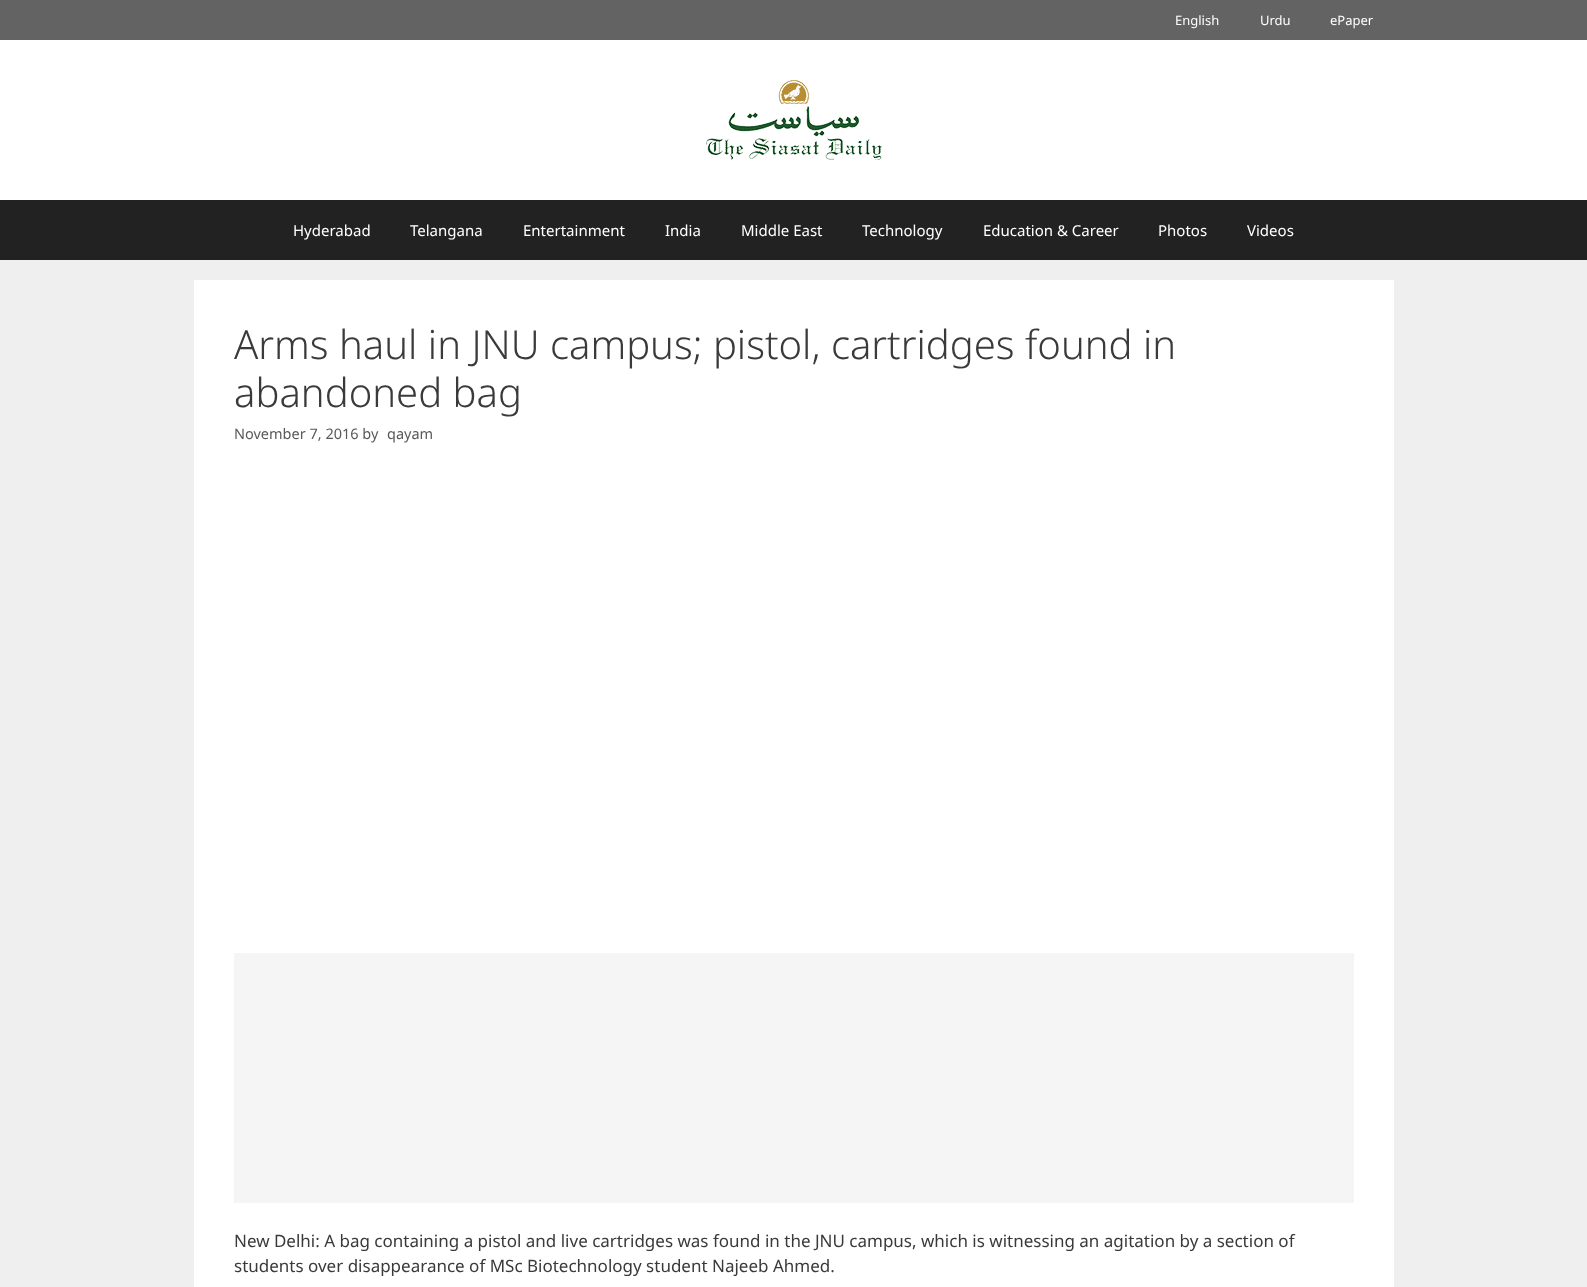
(async () => {
const canvas = document.querySelector("canvas")
canvas.width = 1587
canvas.height = 1287
const c = canvas.getContext("2d")
c.miterLimit = 4
c.fontKerning = "normal"
function T(s,x,y){c.fillText(s,x,y)}
function R(x,y,w,h){c.fillRect(x,y,w,h)}
async function I(src,x,y,w,h){const img=new Image();img.src=src;await img.decode();c.drawImage(img,x,y,w,h)}
c.fillStyle="#efefef"
R(0,0,1587,1287)
c.fillStyle="#636363"
R(0,0,1587,40)
c.font="13px Noto Sans"
c.fillStyle="#fff"
T("English",1175,25)
T("Urdu",1260,25)
T("ePaper",1330,25)
R(0,40,1587,160)
await I("1.png",706,80,176,80)
c.fillStyle="#222"
R(0,200,1587,60)
c.font="15px Noto Sans"
c.fillStyle="#fff"
T("Hyderabad",293,236)
T("Telangana",410,236)
T("Entertainment",523,236)
T("India",665,236)
T("Middle East",741,236)
T("Technology",862,236)
T("Education & Career",983,236)
T("Photos",1158,236)
T("Videos",1247,236)
R(194,280,1200,1007)
c.font="300 40px Noto Sans"
c.fillStyle="#3a3a3a"
T("Arms haul in JNU campus; pistol, cartridges found in",234,359)
T("abandoned bag",234,407)
c.font="14.5px Noto Sans"
c.fillStyle="#595959"
T("November 7, 2016 by",234,439)
T("qayam",387,439)
c.fillStyle="#f5f5f5"
R(234,953,1120,250)
c.font="17px Noto Sans"
c.fillStyle="#3a3a3a"
T("New Delhi: A bag containing a pistol and live cartridges was found in the JNU campus, which is witnessing an agitation by a section of",234,1247)
T("students over disappearance of MSc Biotechnology student Najeeb Ahmed.",234,1272)
})()
